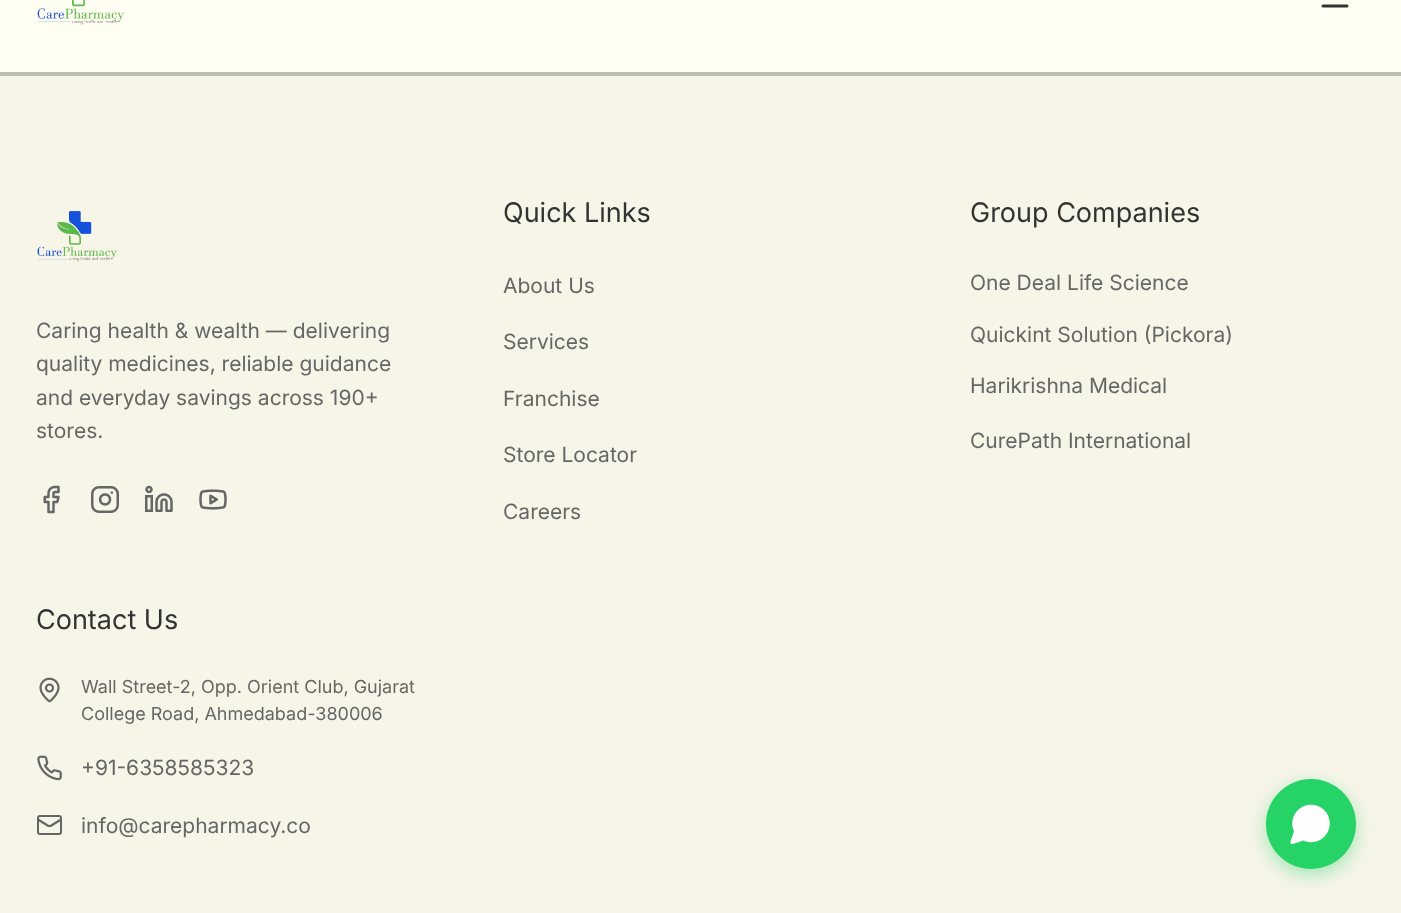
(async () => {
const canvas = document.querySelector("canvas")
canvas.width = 1401
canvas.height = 913
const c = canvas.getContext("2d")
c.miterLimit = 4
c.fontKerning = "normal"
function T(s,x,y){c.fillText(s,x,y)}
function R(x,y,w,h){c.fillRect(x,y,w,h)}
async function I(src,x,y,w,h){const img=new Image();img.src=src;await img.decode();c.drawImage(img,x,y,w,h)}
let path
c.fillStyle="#fffef2"
R(0,0,1401,913)
await I("1.png",37,0,88,25)
path = new Path2D("M1323 6h24")
c.strokeStyle="#333"
c.lineWidth=3
c.lineCap="round"
c.lineJoin="round"
c.stroke(path)
c.fillStyle="#f6f5e8"
R(0,76,1401,837)
c.fillStyle="#bcbbb4"
R(0,72,1401,4)
await I("2.png",37,211,81,51)
c.font="21px Inter"
c.fillStyle="#666"
T("Caring health & wealth — delivering",36,338)
T("quality medicines, reliable guidance",36,371)
T("and everyday savings across 190+",36,405)
T("stores.",36,438)
await I("3.png",43,485,17,29)
await I("4.png",91,486,28,27)
await I("5.png",145,485,28,27)
await I("6.png",199,489,28,21)
c.font="27px Inter"
c.fillStyle="#333"
T("Quick Links",503,222)
c.font="21px Inter"
c.fillStyle="#666"
T("About Us",503,293)
T("Services",503,349)
T("Franchise",503,406)
T("Store Locator",503,462)
T("Careers",503,519)
c.font="27px Inter"
c.fillStyle="#333"
T("Group Companies",970,222)
c.font="21px Inter"
c.fillStyle="#666"
T("One Deal Life Science",970,290)
T("Quickint Solution (Pickora)",970,342)
T("Harikrishna Medical",970,393)
T("CurePath International",970,448)
c.font="27px Inter"
c.fillStyle="#333"
T("Contact Us",36,629)
await I("7.png",39,677,21,26)
c.font="18px Inter"
c.fillStyle="#666"
T("Wall Street-2, Opp. Orient Club, Gujarat",81,693)
T("College Road, Ahmedabad-380006",81,720)
await I("8.png",37,755,25,26)
c.font="21px Inter"
T("+91-6358585323",81,775)
path = new Path2D("M61 819.5l-10.5 6.5c-.5 0-1.5 0-2 0l-10.5-6.5")
c.strokeStyle="#666"
c.lineWidth=2.2
c.stroke(path)
c.beginPath()
c.roundRect(38,816,23,18,2)
c.lineWidth=2
c.lineJoin="miter"
c.stroke()
T("info@carepharmacy.co",81,833)
c.fillStyle="#25d36666"
c.filter="blur(9px)"
c.beginPath()
c.roundRect(1266,785,90,90,45)
c.fill()
c.filter="none"
c.fillStyle="#25d366"
c.beginPath()
c.arc(1311,824,45,0,7)
c.fill()
await I("9.png",1290,804,40,41)
})()
